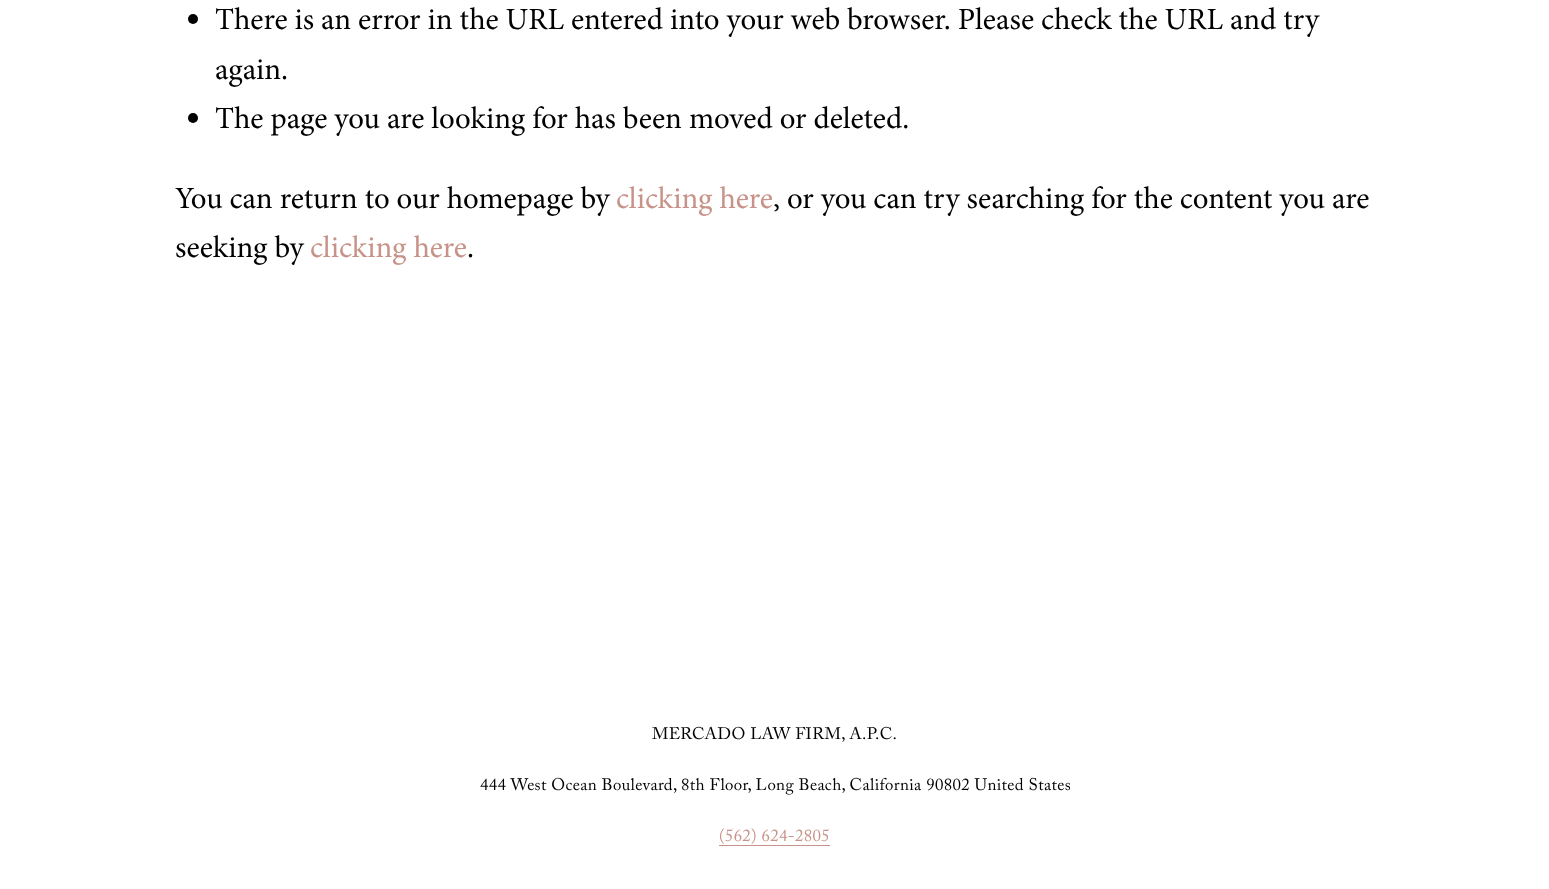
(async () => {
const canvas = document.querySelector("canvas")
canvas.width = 1549
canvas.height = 889
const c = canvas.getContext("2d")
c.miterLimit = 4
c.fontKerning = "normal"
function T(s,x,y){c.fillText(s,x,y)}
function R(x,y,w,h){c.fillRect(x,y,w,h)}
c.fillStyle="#fff"
R(0,0,1549,889)
c.fillStyle="#000"
c.beginPath()
c.arc(193,19,5,0,7)
c.fill()
c.font="30.8px Minion"
T("There is an error in the URL entered into your web browser. Please check the URL and try",215,29)
T("again.",215,79)
c.beginPath()
c.arc(193,118,5,0,7)
c.fill()
T("The page you are looking for has been moved or deleted.",215,128)
T("You can return to our homepage by",175,208)
c.fillStyle="#c79288"
T("clicking here",616,208)
c.fillStyle="#000"
T(", or you can try searching for the content you are",773,208)
T("seeking by",175,257)
c.fillStyle="#c79288"
T("clicking here",310,257)
c.fillStyle="#000"
T(".",467,257)
c.letterSpacing="0.35px"
c.font="16.8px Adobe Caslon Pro"
T("MERCADO LAW FIRM, A.P.C.",652,739)
T("444 West Ocean Boulevard, 8th Floor, Long Beach, California 90802 United States",480,790)
c.fillStyle="#c79288"
T("(562) 624-2805",719,841)
R(719,845,111,1)
})()
